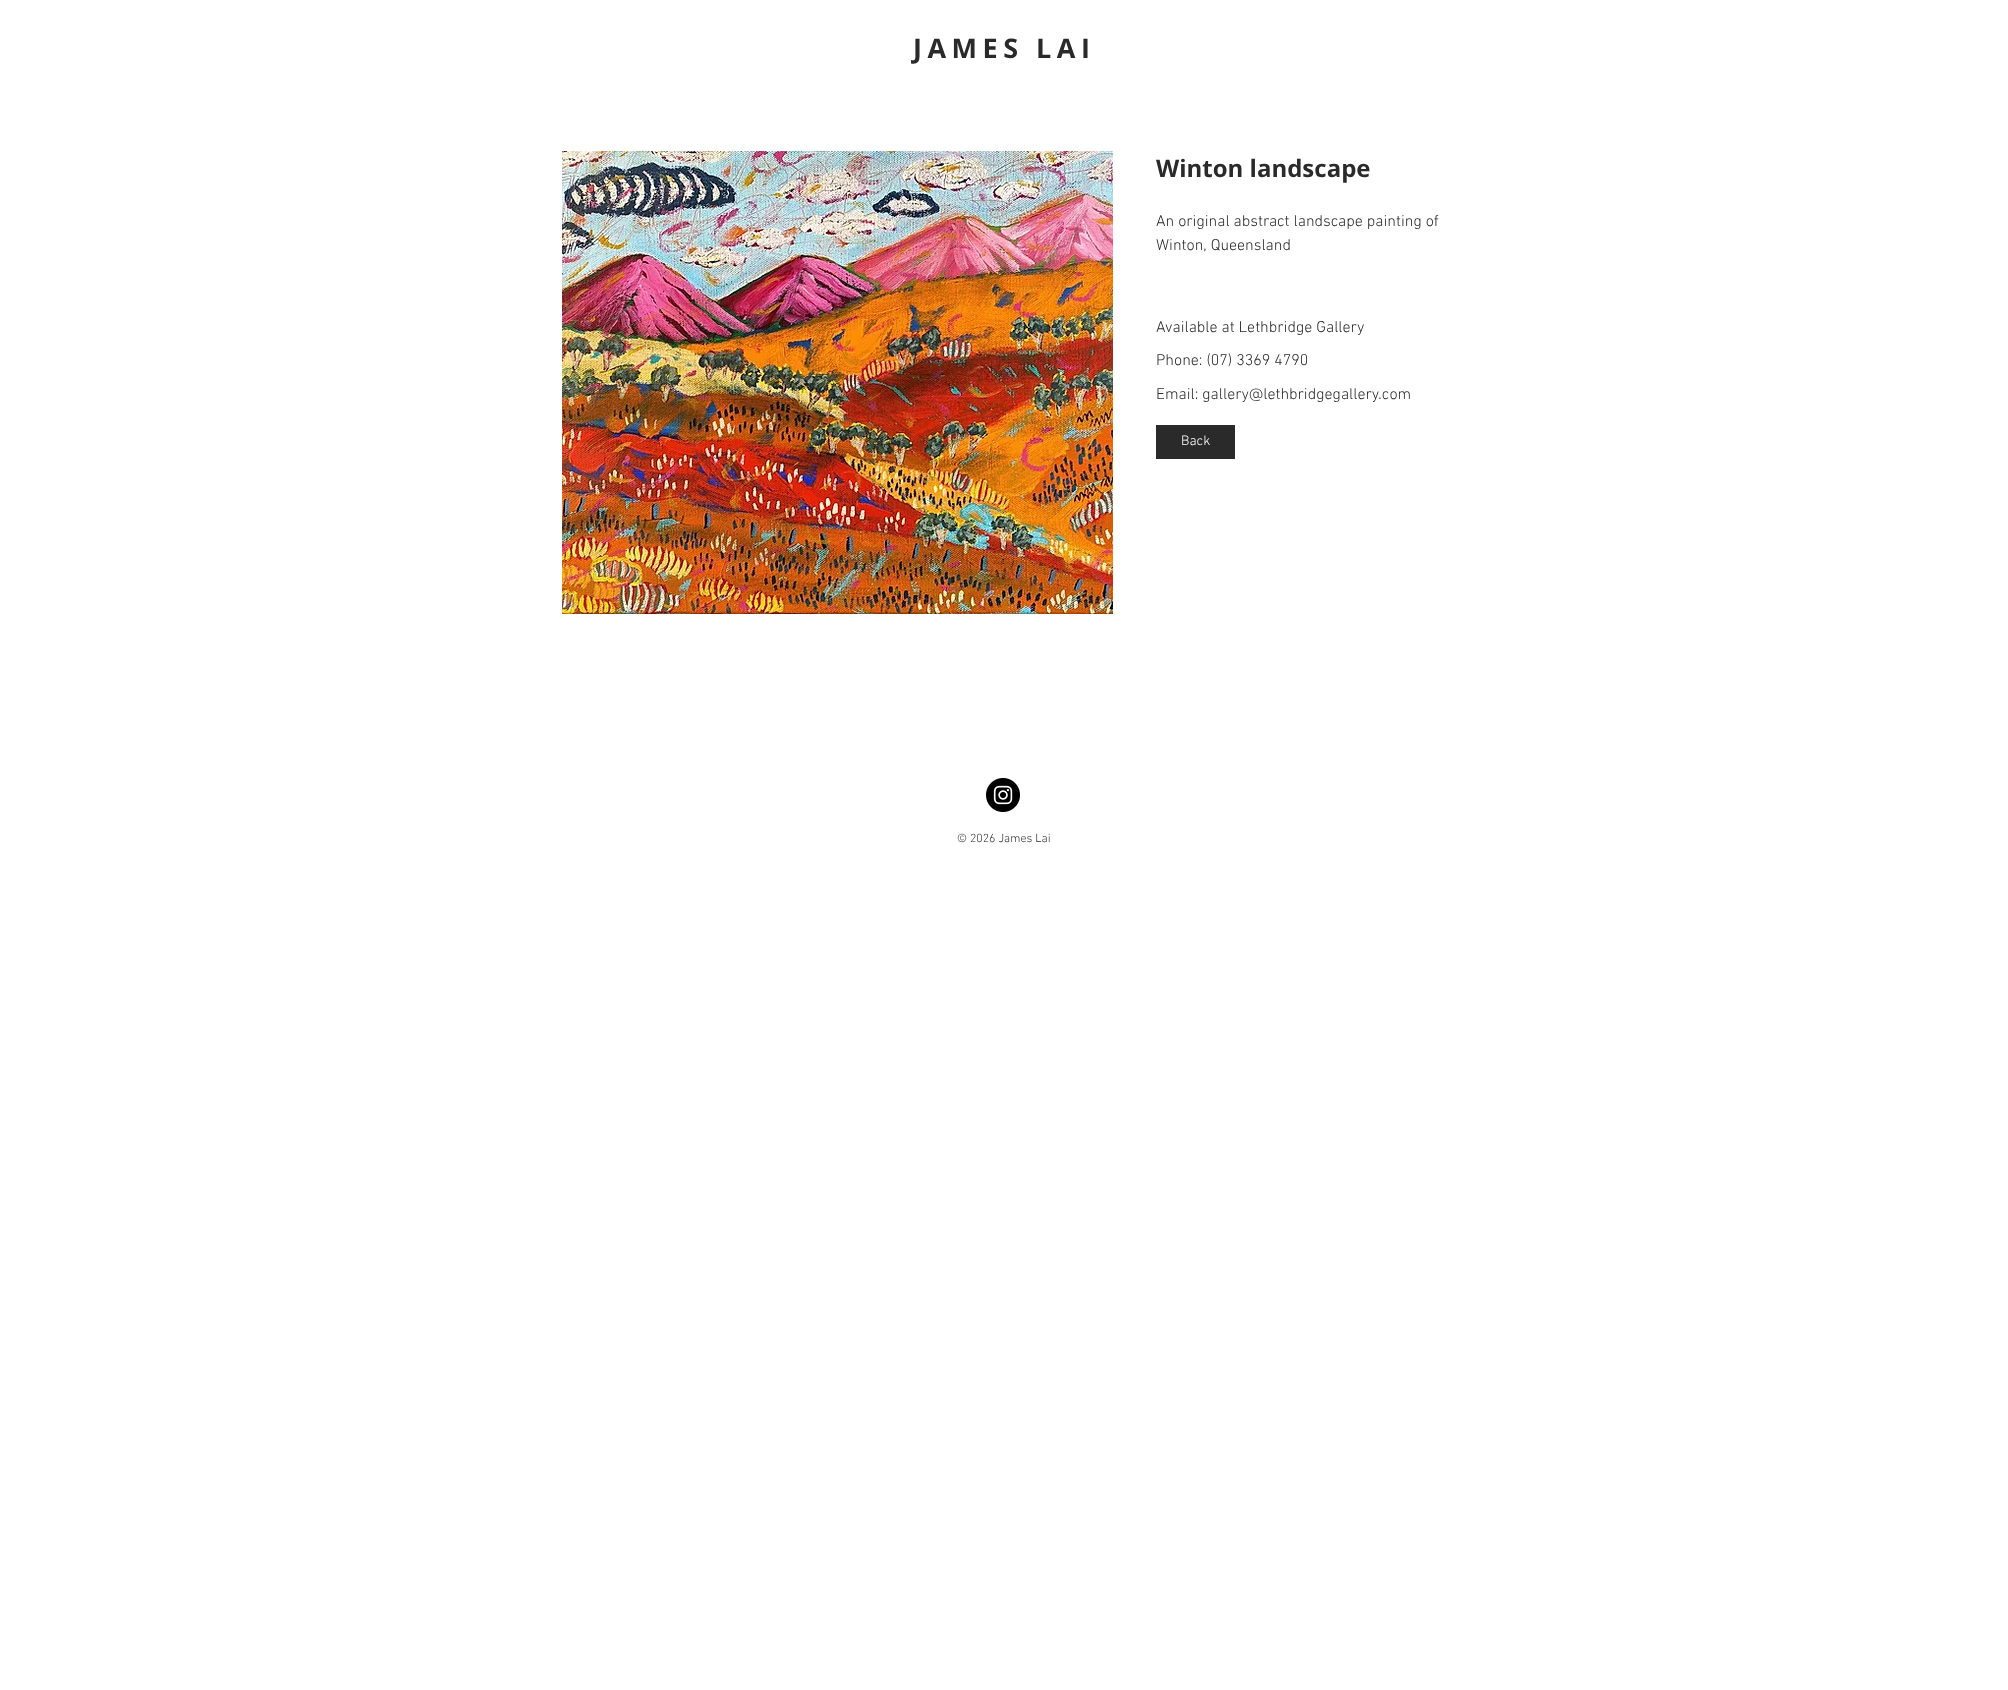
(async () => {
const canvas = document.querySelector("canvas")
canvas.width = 2008
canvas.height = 1690
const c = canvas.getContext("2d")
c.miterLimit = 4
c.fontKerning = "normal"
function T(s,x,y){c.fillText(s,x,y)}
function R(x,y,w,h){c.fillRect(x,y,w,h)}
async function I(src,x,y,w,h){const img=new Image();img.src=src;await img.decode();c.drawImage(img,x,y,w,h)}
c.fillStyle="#fff"
R(0,0,2008,1690)
c.letterSpacing="5.5px"
c.font="bold 27px Open Sans"
c.fillStyle="#2a2a2a"
T("JAMES LAI",913,58)
await I("1.png",562,151,551,463)
c.letterSpacing="0px"
c.font="bold 24px Open Sans"
T("Winton landscape",1156,177)
c.font="300 16px 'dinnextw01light'"
T("An original abstract landscape painting of",1156,226)
T("Winton, Queensland",1156,250)
T("Available at Lethbridge Gallery",1156,332)
T("Phone: (07) 3369 4790",1156,365)
T("Email: gallery@lethbridgegallery.com",1156,399)
R(1156,425,79,34)
c.font="300 14px 'dinnextw01light'"
c.fillStyle="#fff"
T("Back",1181,445)
await I("2.png",986,778,34,34)
c.font="300 12px 'dinnextw01light'"
c.fillStyle="#2a2a2a"
T("© 2026 James Lai",957,842)
})()
